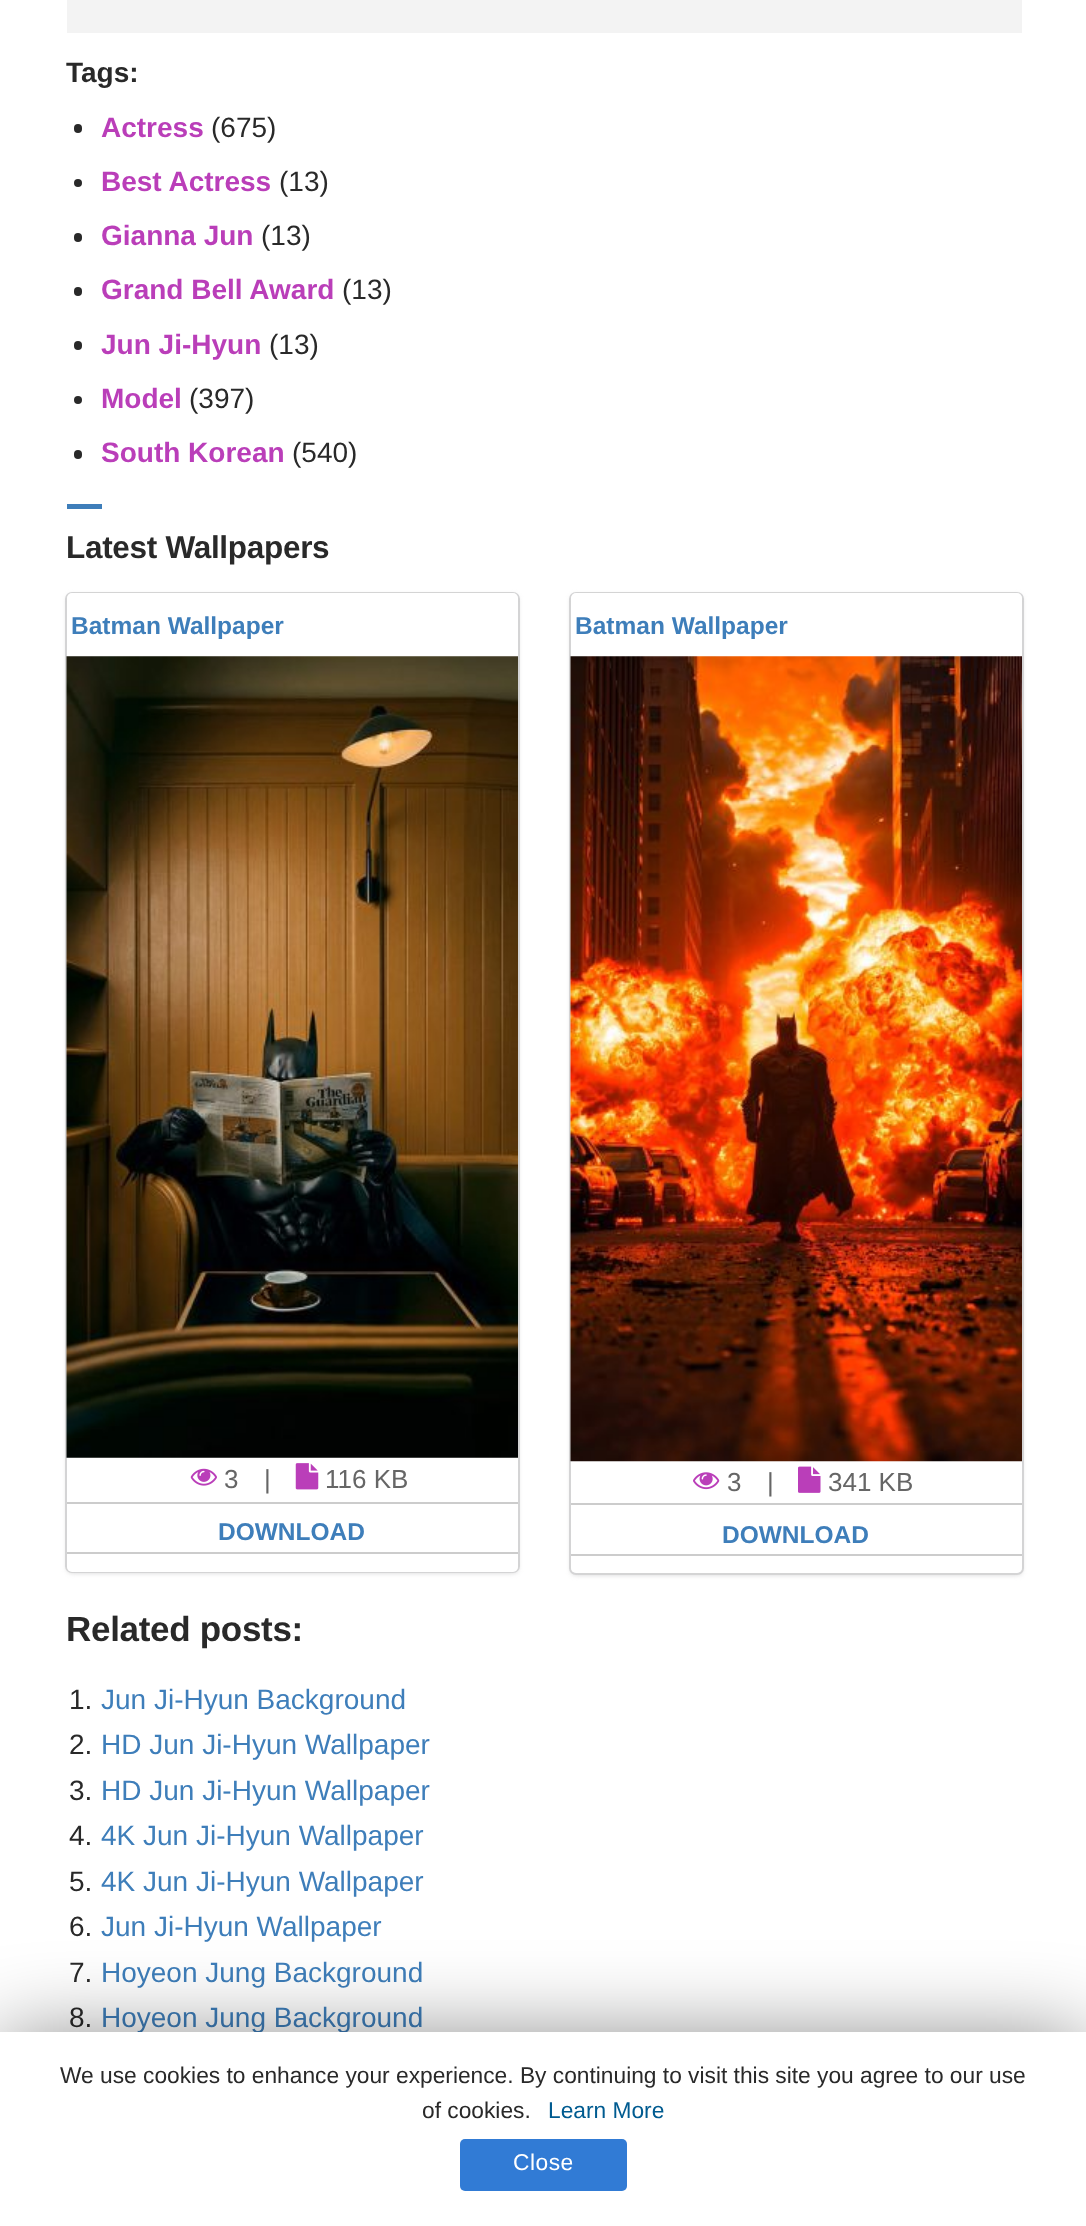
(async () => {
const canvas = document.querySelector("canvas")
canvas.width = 1086
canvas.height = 2226
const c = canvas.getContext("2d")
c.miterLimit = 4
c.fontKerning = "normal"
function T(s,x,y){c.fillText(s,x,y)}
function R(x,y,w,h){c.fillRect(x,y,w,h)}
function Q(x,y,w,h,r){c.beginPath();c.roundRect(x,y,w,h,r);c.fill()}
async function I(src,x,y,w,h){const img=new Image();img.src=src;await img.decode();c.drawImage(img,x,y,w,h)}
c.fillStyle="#fff"
R(0,0,1086,2226)
c.fillStyle="#f3f3f3"
R(67,0,955,33)
c.font="bold 28px Liberation Sans"
c.fillStyle="#292929"
T("Tags:",66,82)
Q(74,124,8,9,4)
c.fillStyle="#ba3eb9"
T("Actress",101,137)
c.font="28px Liberation Sans"
c.fillStyle="#292929"
T("(675)",211,137)
c.beginPath()
c.arc(78,183,4,0,7)
c.fill()
c.font="bold 28px Liberation Sans"
c.fillStyle="#ba3eb9"
T("Best Actress",101,191)
c.font="28px Liberation Sans"
c.fillStyle="#292929"
T("(13)",279,191)
Q(74,233,8,9,4)
c.font="bold 28px Liberation Sans"
c.fillStyle="#ba3eb9"
T("Gianna Jun",101,245)
c.font="28px Liberation Sans"
c.fillStyle="#292929"
T("(13)",261,245)
Q(74,287,8,9,4)
c.font="bold 28px Liberation Sans"
c.fillStyle="#ba3eb9"
T("Grand Bell Award",101,299)
c.font="28px Liberation Sans"
c.fillStyle="#292929"
T("(13)",342,299)
Q(74,341,8,9,4)
c.font="bold 28px Liberation Sans"
c.fillStyle="#ba3eb9"
T("Jun Ji-Hyun",101,354)
c.font="28px Liberation Sans"
c.fillStyle="#292929"
T("(13)",269,354)
c.beginPath()
c.arc(78,400,4,0,7)
c.fill()
c.font="bold 28px Liberation Sans"
c.fillStyle="#ba3eb9"
T("Model",101,408)
c.font="28px Liberation Sans"
c.fillStyle="#292929"
T("(397)",189,408)
Q(74,450,8,9,4)
c.font="bold 28px Liberation Sans"
c.fillStyle="#ba3eb9"
T("South Korean",101,462)
c.font="28px Liberation Sans"
c.fillStyle="#292929"
T("(540)",292,462)
c.fillStyle="#3e7eba"
R(67,504,35,5)
c.letterSpacing="-0.3px"
c.font="bold 31.5px Liberation Sans"
c.fillStyle="#292929"
T("Latest Wallpapers",66,558)
c.beginPath()
c.roundRect(66,593,453,979,6)
c.strokeStyle="#d4d4d5"
c.lineWidth=2
c.stroke()
c.fillStyle="#d4d4d5"
c.filter="blur(2.5px)"
c.beginPath()
c.roundRect(67,595,451,978,5)
c.fill()
c.filter="none"
c.fillStyle="#fff"
Q(67,593,451,979,5)
c.save()
c.beginPath()
c.rect(72,611,446,28)
c.clip()
c.letterSpacing="0px"
c.font="bold 24.5px Liberation Sans"
c.fillStyle="#3e7eba"
T("Batman Wallpaper",71,634)
c.restore()
await I("1.png",66,656,452,802)
await I("2.png",190,1468,27,18)
c.letterSpacing="0px"
c.font="26px Liberation Sans"
c.fillStyle="#666"
T("3",224,1488)
T("|",264,1488)
await I("3.png",295,1463,24,27)
T("116 KB",325,1488)
c.fillStyle="#ccc"
R(67,1502,451,2)
R(67,1552,451,2)
c.font="bold 24.5px Liberation Sans"
c.fillStyle="#3e7eba"
T("DOWNLOAD",218,1540)
c.beginPath()
c.roundRect(570,593,453,981,6)
c.stroke()
c.fillStyle="#d4d4d5"
c.filter="blur(2.5px)"
c.beginPath()
c.roundRect(571,595,451,980,5)
c.fill()
c.filter="none"
c.fillStyle="#fff"
Q(571,593,451,980,5)
c.save()
c.beginPath()
c.rect(576,611,446,28)
c.clip()
c.fillStyle="#3e7eba"
T("Batman Wallpaper",575,634)
c.restore()
await I("4.png",570,656,452,806)
await I("5.png",693,1472,27,18)
c.font="26px Liberation Sans"
c.fillStyle="#666"
T("3",727,1491)
T("|",767,1491)
await I("6.png",798,1466,23,27)
T("341 KB",828,1491)
c.fillStyle="#ccc"
R(571,1503,451,2)
R(571,1554,451,2)
c.font="bold 24.5px Liberation Sans"
c.fillStyle="#3e7eba"
T("DOWNLOAD",722,1543)
c.letterSpacing="-0.3px"
c.font="bold 35px Liberation Sans"
c.fillStyle="#292929"
T("Related posts:",66,1641)
c.letterSpacing="0px"
c.font="28px Liberation Sans"
T("1.",69,1709)
c.fillStyle="#3e7eba"
T("Jun Ji-Hyun Background",101,1709)
c.fillStyle="#292929"
T("2.",69,1754)
c.fillStyle="#3e7eba"
T("HD Jun Ji-Hyun Wallpaper",101,1754)
c.fillStyle="#292929"
T("3.",69,1800)
c.fillStyle="#3e7eba"
T("HD Jun Ji-Hyun Wallpaper",101,1800)
c.fillStyle="#292929"
T("4.",69,1845)
c.fillStyle="#3e7eba"
T("4K Jun Ji-Hyun Wallpaper",101,1845)
c.fillStyle="#292929"
T("5.",69,1891)
c.fillStyle="#3e7eba"
T("4K Jun Ji-Hyun Wallpaper",101,1891)
c.fillStyle="#292929"
T("6.",69,1936)
c.fillStyle="#3e7eba"
T("Jun Ji-Hyun Wallpaper",101,1936)
c.fillStyle="#292929"
T("7.",69,1982)
c.fillStyle="#3e7eba"
T("Hoyeon Jung Background",101,1982)
c.fillStyle="#292929"
T("8.",69,2027)
c.fillStyle="#3e7eba"
T("Hoyeon Jung Background",101,2027)
c.fillStyle="#00000080"
c.filter="blur(44px)"
c.beginPath()
c.rect(0,2041,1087,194)
c.fill()
c.filter="none"
c.fillStyle="#fff"
R(0,2032,1086,194)
c.font="22.75px Liberation Sans"
c.fillStyle="#292929"
T("We use cookies to enhance your experience. By continuing to visit this site you agree to our use",60,2083)
T("of cookies.",422,2118)
c.fillStyle="#005b90"
T("Learn More",548,2118)
c.fillStyle="#317bd5"
Q(460,2139,167,52,5)
c.letterSpacing="0.5px"
c.fillStyle="#fff"
T("Close",513,2170)
})()
